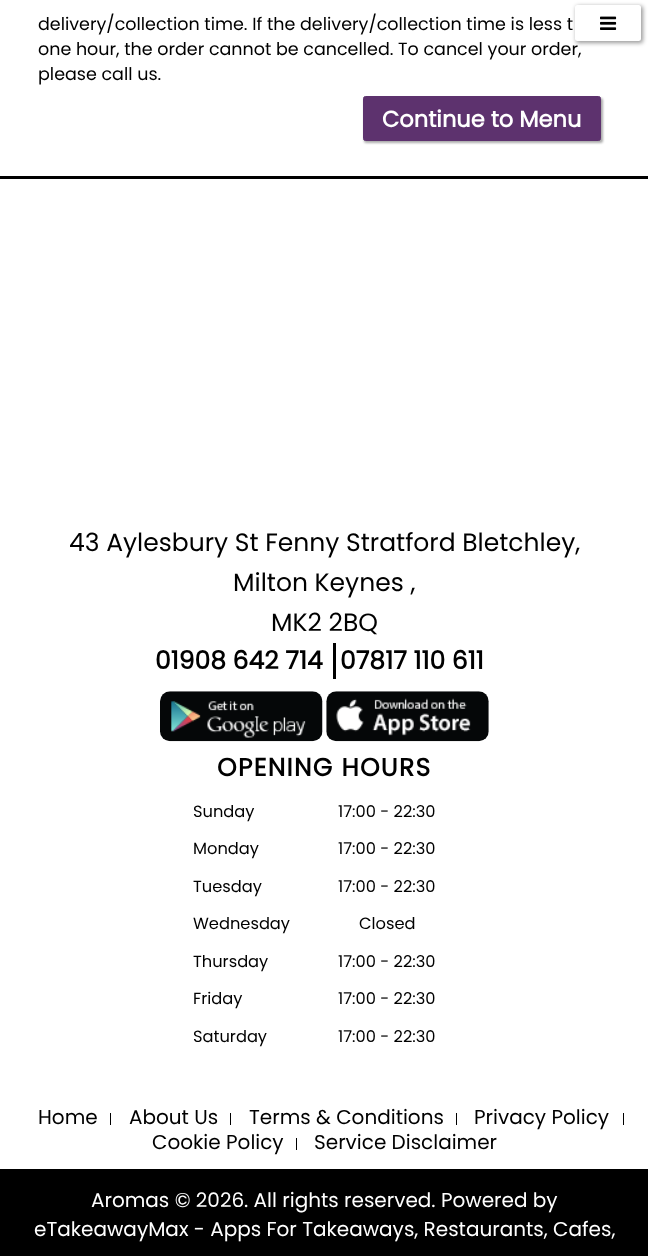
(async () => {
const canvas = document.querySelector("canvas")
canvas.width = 648
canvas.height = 1256
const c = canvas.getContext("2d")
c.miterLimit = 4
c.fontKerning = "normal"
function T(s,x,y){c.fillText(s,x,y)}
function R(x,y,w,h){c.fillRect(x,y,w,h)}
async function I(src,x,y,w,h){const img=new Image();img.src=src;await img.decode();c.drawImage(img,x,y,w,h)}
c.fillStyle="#fff"
R(0,0,648,1256)
c.font="17.5px Poppins"
c.fillStyle="#000"
T("delivery/collection time. If the delivery/collection time is less t",38,30)
T("one hour, the order cannot be cancelled. To cancel your order,",38,55)
T("please call us.",38,80)
c.fillStyle="#00000054"
c.filter="blur(1px)"
c.beginPath()
c.roundRect(364,98,239,45,2.5)
c.fill()
c.filter="none"
c.fillStyle="#5d326e"
c.beginPath()
c.roundRect(363.5,96.5,237,44,2)
c.fill()
c.strokeStyle="#5d326e"
c.stroke()
c.font="bold 22.5px Poppins"
c.fillStyle="#fff"
T("Continue to Menu",382,127)
c.fillStyle="#00000066"
c.filter="blur(2px)"
c.beginPath()
c.roundRect(576,6,67,37,2.5)
c.fill()
c.filter="none"
c.fillStyle="#fff"
c.beginPath()
c.roundRect(576.5,6.5,63,33,1)
c.fill()
c.strokeStyle="#fff"
c.lineWidth=3
c.stroke()
await I("1.png",600,16,17,14)
c.fillStyle="#000"
R(0,176,648,3)
c.font="25px Poppins"
T("43 Aylesbury St Fenny Stratford Bletchley,",69,551)
T("Milton Keynes ,",233,591)
T("MK2 2BQ",271,631)
R(333,643,3,36)
c.font="bold 25px Poppins"
T("01908 642 714",155,669)
T("07817 110 611",340,669)
await I("2.png",160,691,163,51)
await I("3.png",326,691,163,51)
c.letterSpacing="1.25px"
T("OPENING HOURS",217,776)
c.letterSpacing="0px"
c.font="16.25px Poppins"
T("Sunday",193,817)
T("17:00 - 22:30",338,817)
T("Monday",193,854)
T("17:00 - 22:30",338,854)
T("Tuesday",193,892)
T("17:00 - 22:30",338,892)
T("Wednesday",193,929)
T("Closed",359,929)
T("Thursday",193,967)
T("17:00 - 22:30",338,967)
T("Friday",193,1004)
T("17:00 - 22:30",338,1004)
T("Saturday",193,1042)
T("17:00 - 22:30",338,1042)
R(110,1113,1,12)
c.font="20px Poppins"
T("Home",38,1124)
R(230,1113,1,12)
T("About Us",129,1124)
R(456,1113,1,12)
T("Terms & Conditions",249,1124)
R(623,1113,1,12)
T("Privacy Policy",474,1124)
R(296,1138,1,12)
T("Cookie Policy",152,1149)
T("Service Disclaimer",314,1149)
R(0,1169,648,87)
c.fillStyle="#fff"
T("Aromas © 2026. All rights reserved. Powered by",91,1207)
T("eTakeawayMax - Apps For Takeaways, Restaurants, Cafes,",34,1236)
})()
